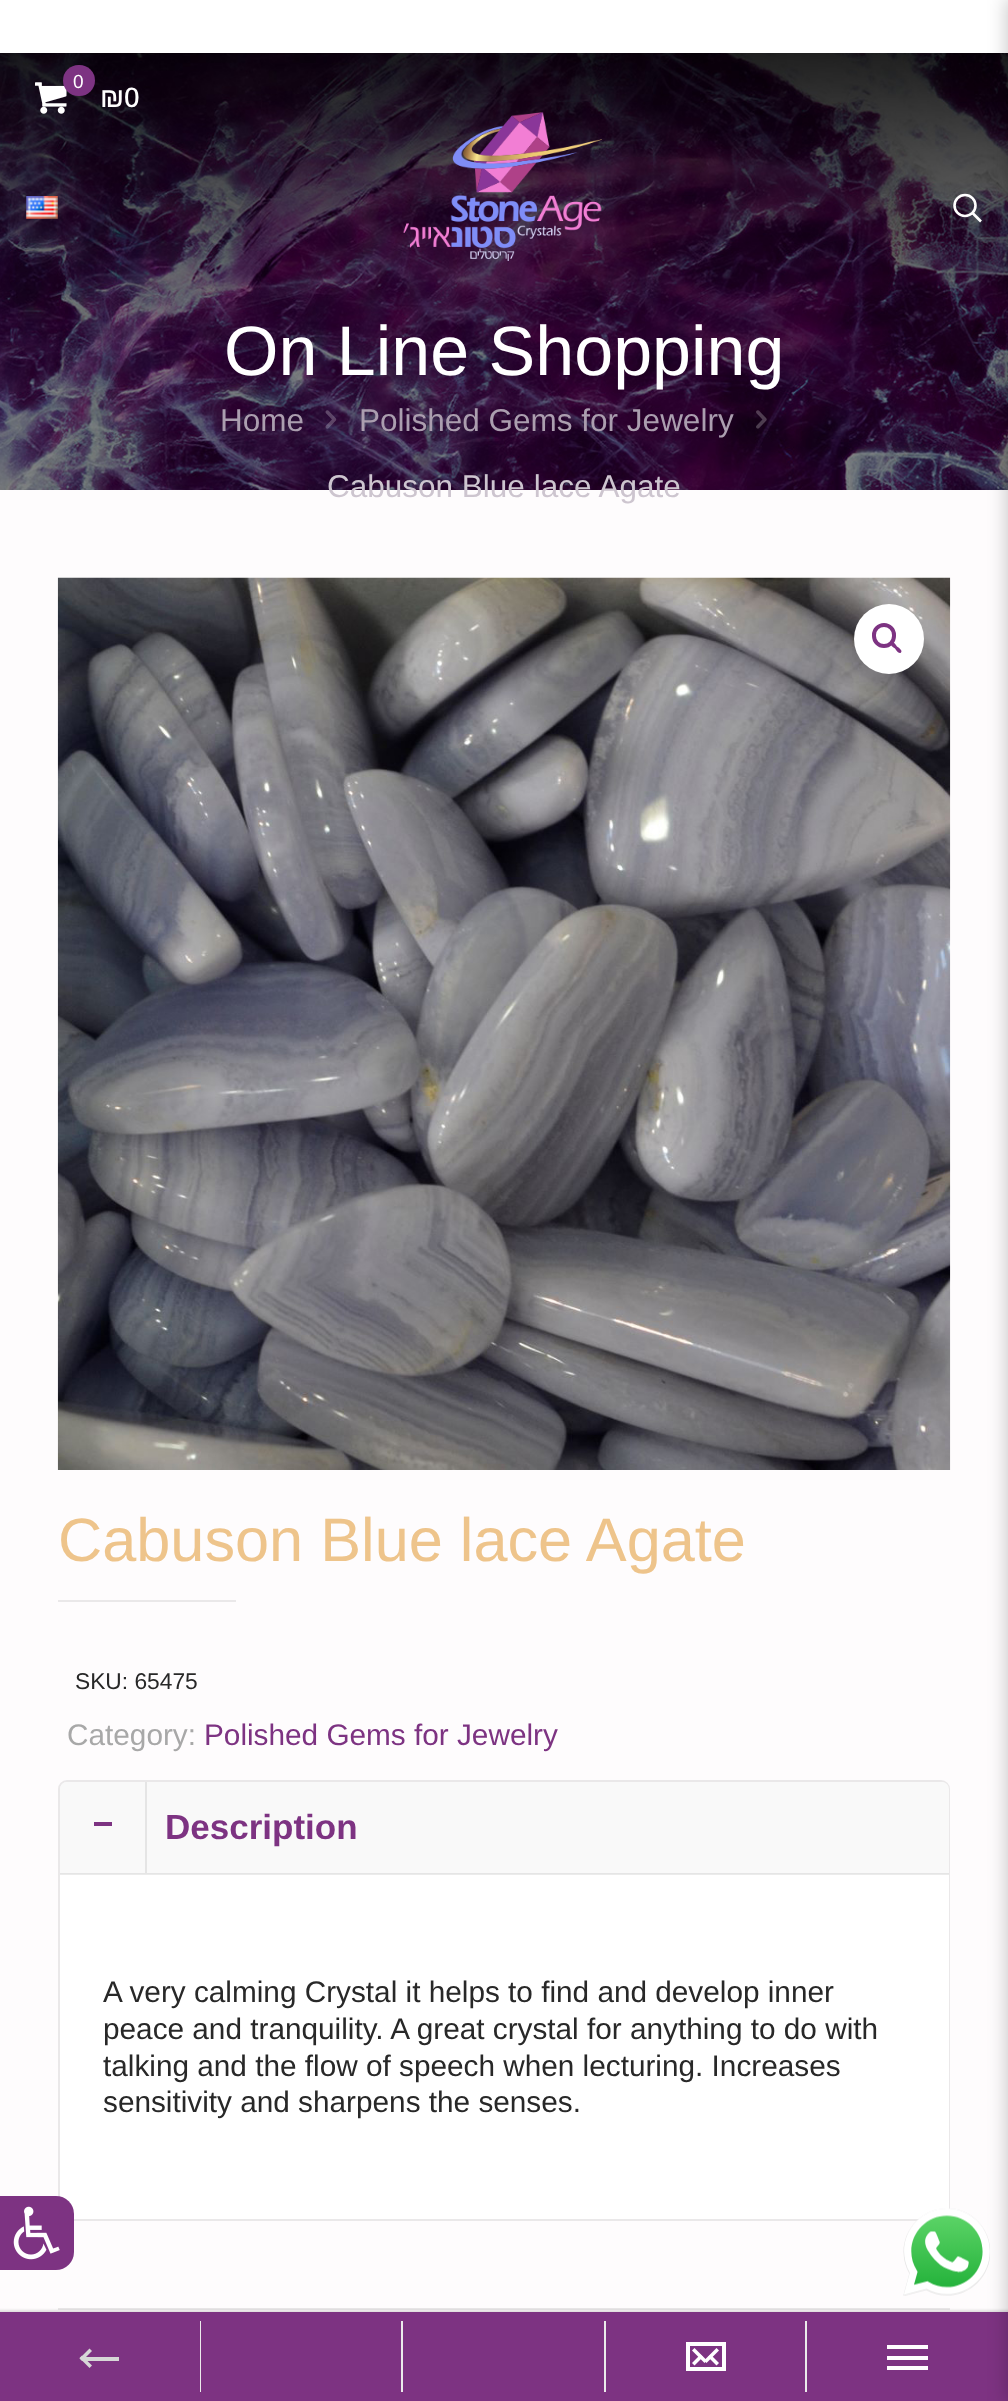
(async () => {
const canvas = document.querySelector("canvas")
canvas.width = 1008
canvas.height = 2401
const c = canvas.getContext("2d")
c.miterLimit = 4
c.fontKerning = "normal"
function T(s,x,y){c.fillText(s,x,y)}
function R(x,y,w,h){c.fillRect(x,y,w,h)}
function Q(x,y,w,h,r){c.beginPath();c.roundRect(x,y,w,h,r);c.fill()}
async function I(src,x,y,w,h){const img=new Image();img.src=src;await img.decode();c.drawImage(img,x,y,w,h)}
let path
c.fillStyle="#fefcfd"
R(0,0,1008,2401)
await I("1.png",0,53,1008,437)
c.fillStyle="#fff"
R(0,0,1008,53)
await I("2.png",35,82,32,32)
c.fillStyle="#7d3382"
Q(63,65,32,31,15.5)
c.font="19px Arimo"
c.fillStyle="#fff"
T("0",73,88)
c.font="500 28px Arimo"
T("₪0",100,107)
await I("3.png",26,196,32,23)
c.beginPath()
c.arc(965,205.5,10.5,0,7)
c.strokeStyle="#fff"
c.lineWidth=2.6
c.stroke()
path = new Path2D("M972.5 213l8.5 8.5")
c.stroke(path)
await I("4.png",403,112,199,149)
c.font="70px Arimo"
T("On Line Shopping",224,375)
c.font="31.5px Arimo"
c.fillStyle="#ab9eaf"
T("Home",220,431)
await I("5.png",325,410,12,19)
T("Polished Gems for Jewelry",359,431)
await I("6.png",756,410,11,19)
c.fillStyle="#cdc5cf"
T("Cabuson Blue lace Agate",327,497)
await I("7.png",57,577,894,893)
c.fillStyle="#fff"
c.beginPath()
c.arc(889,639,35,0,7)
c.fill()
c.beginPath()
c.roundRect(874,625,20,21,10)
c.strokeStyle="#7d3382"
c.lineWidth=4
c.stroke()
c.fillStyle="#7d3382"
path = new Path2D("M891 642.5c2-2 5 2.5 6 4c1.5 1 6 4 4 6c-2 2-5-2.5-6-4c-1.5-1-6-4-4-6z")
c.fill(path)
c.font="61.25px Arimo"
c.fillStyle="#eec48b"
T("Cabuson Blue lace Agate",58,1561)
c.fillStyle="#eae8e9"
R(58,1600,178,2)
c.font="22.75px Arimo"
c.fillStyle="#282828"
T("SKU: 65475",75,1689)
c.font="29.75px Arimo"
c.fillStyle="#a8a8a8"
T("Category:",67,1745)
c.fillStyle="#7d3382"
T("Polished Gems for Jewelry",204,1745)
c.beginPath()
c.roundRect(59,1781,890,439,8)
c.strokeStyle="#eae8e9"
c.lineWidth=2
c.stroke()
c.fillStyle="#f9f9f9"
c.beginPath()
c.roundRect(60,1782,889,92,[7,7,0,0])
c.fill()
c.fillStyle="#fff"
R(60,1874,889,345)
c.fillStyle="#00000014"
R(60,1873,889,2)
c.fillStyle="#7d3382"
R(94,1822,18,4)
c.fillStyle="#e5e5e5"
R(145,1782,2,91)
c.font="bold 35px Arimo"
c.fillStyle="#7d3382"
T("Description",165,1839)
c.font="29.75px Arimo"
c.fillStyle="#282828"
T("A very calming Crystal it helps to find and develop inner",103,2002)
T("peace and tranquility. A great crystal for anything to do with",103,2039)
T("talking and the flow of speech when lecturing. Increases",103,2076)
T("sensitivity and sharpens the senses. ",103,2112)
c.fillStyle="#eae8e9"
R(58,2308,892,2)
c.fillStyle="#0000001f"
c.filter="blur(1px)"
c.beginPath()
c.rect(-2,2310,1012,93)
c.fill()
c.filter="none"
c.fillStyle="#7d3382"
R(0,2312,1008,89)
c.fillStyle="#00000033"
c.filter="blur(9px)"
c.beginPath()
c.rect(1006,-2,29,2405)
c.fill()
c.filter="none"
c.fillStyle="#7d3382"
c.beginPath()
c.roundRect(0,2196,74,74,[0,18,18,0])
c.fill()
await I("8.png",13,2206,47,54)
await I("9.png",903,2208,87,88)
c.fillStyle="#d7d7d7"
R(82,2357,37,4)
path = new Path2D("M79.5 2358.5l10-10l2.5 2.5l-10 10z")
c.fill(path)
path = new Path2D("M82 2355.5l10 10l-2.5 2.5l-10-10z")
c.fill(path)
c.fillStyle="#ebebeb"
R(200,2321,1,71)
R(401,2321,2,71)
R(604,2321,2,71)
c.strokeStyle="#fff"
c.lineWidth=4
c.strokeRect(688,2344,36,25)
c.fillStyle="#fff"
path = new Path2D("M700.5 2354.5l2.5 2.5l-8.5 8.5l-2.5-2.5z")
c.fill(path)
path = new Path2D("M692 2350.5l2.5-2.5l12.5 12.5l-2.5 2.5z")
c.fill(path)
path = new Path2D("M716.5 2348l2.5 2.5l-12.5 12.5l-2.5-2.5z")
c.fill(path)
path = new Path2D("M708 2357l2.5-2.5l8.5 8.5l-2.5 2.5z")
c.fill(path)
c.fillStyle="#ebebeb"
R(805,2321,2,71)
c.fillStyle="#fff"
R(887,2356,41,4)
R(887,2345,41,4)
R(887,2366,41,4)
})()
